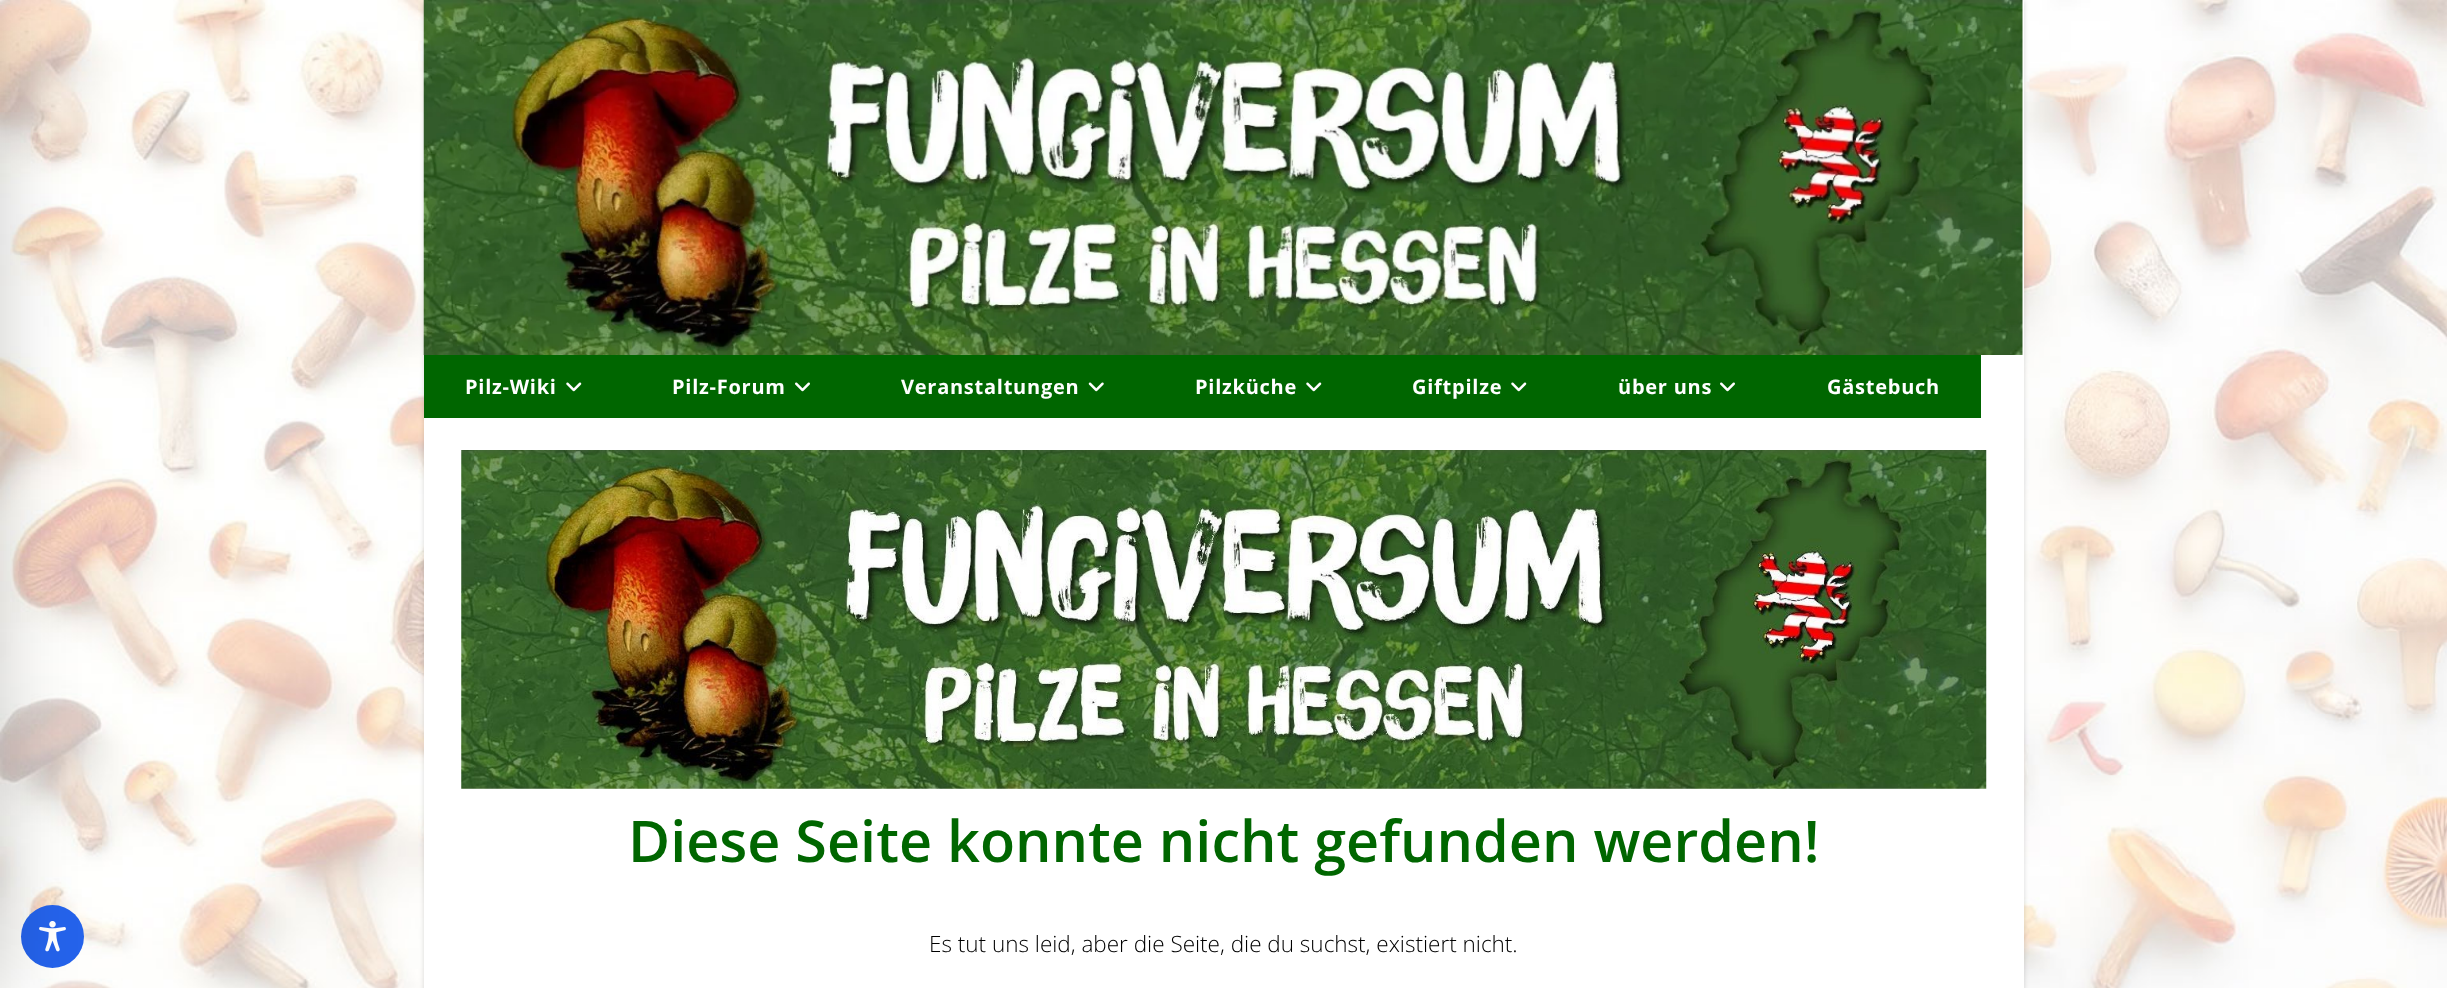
(async () => {
const canvas = document.querySelector("canvas")
canvas.width = 2447
canvas.height = 988
const c = canvas.getContext("2d")
c.miterLimit = 4
c.fontKerning = "normal"
function T(s,x,y){c.fillText(s,x,y)}
function R(x,y,w,h){c.fillRect(x,y,w,h)}
async function I(src,x,y,w,h){const img=new Image();img.src=src;await img.decode();c.drawImage(img,x,y,w,h)}
c.fillStyle="#fff"
R(0,0,2447,988)
await I("1.png",0,0,2447,988)
c.fillStyle="#2563eb"
c.beginPath()
c.arc(52.5,936.5,31.5,0,7)
c.fill()
await I("7.png",39,921,27,31)
c.fillStyle="#00000033"
c.filter="blur(37.5px)"
c.beginPath()
c.rect(-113,13,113,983)
c.fill()
c.filter="none"
c.fillStyle="#00000026"
c.filter="blur(2.5px)"
c.beginPath()
c.rect(424,1,1600,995)
c.fill()
c.filter="none"
c.fillStyle="#fff"
R(424,0,1600,988)
await I("2.png",423,0,1600,355)
c.fillStyle="#060"
R(424,355,1557,63)
c.letterSpacing="0.75px"
c.font="bold 20px Open Sans"
c.fillStyle="#fff"
T("Pilz-Wiki",465,394)
await I("3.png",566,382,16,10)
T("Pilz-Forum",672,394)
await I("4.png",795,382,15,10)
T("Veranstaltungen",901,394)
await I("5.png",1088,382,16,10)
T("Pilzküche",1195,394)
await I("3.png",1306,382,16,10)
T("Giftpilze",1412,394)
await I("3.png",1511,382,16,10)
T("über uns",1618,394)
await I("4.png",1720,382,15,10)
T("Gästebuch",1827,394)
await I("6.png",461,450,1526,339)
c.letterSpacing="0px"
c.font="600 57.5px Open Sans"
c.fillStyle="#060"
T("Diese Seite konnte nicht gefunden werden!",628,862)
c.font="300 22.5px Open Sans"
c.fillStyle="#000"
T("Es tut uns leid, aber die Seite, die du suchst, existiert nicht.",929,952)
})()
